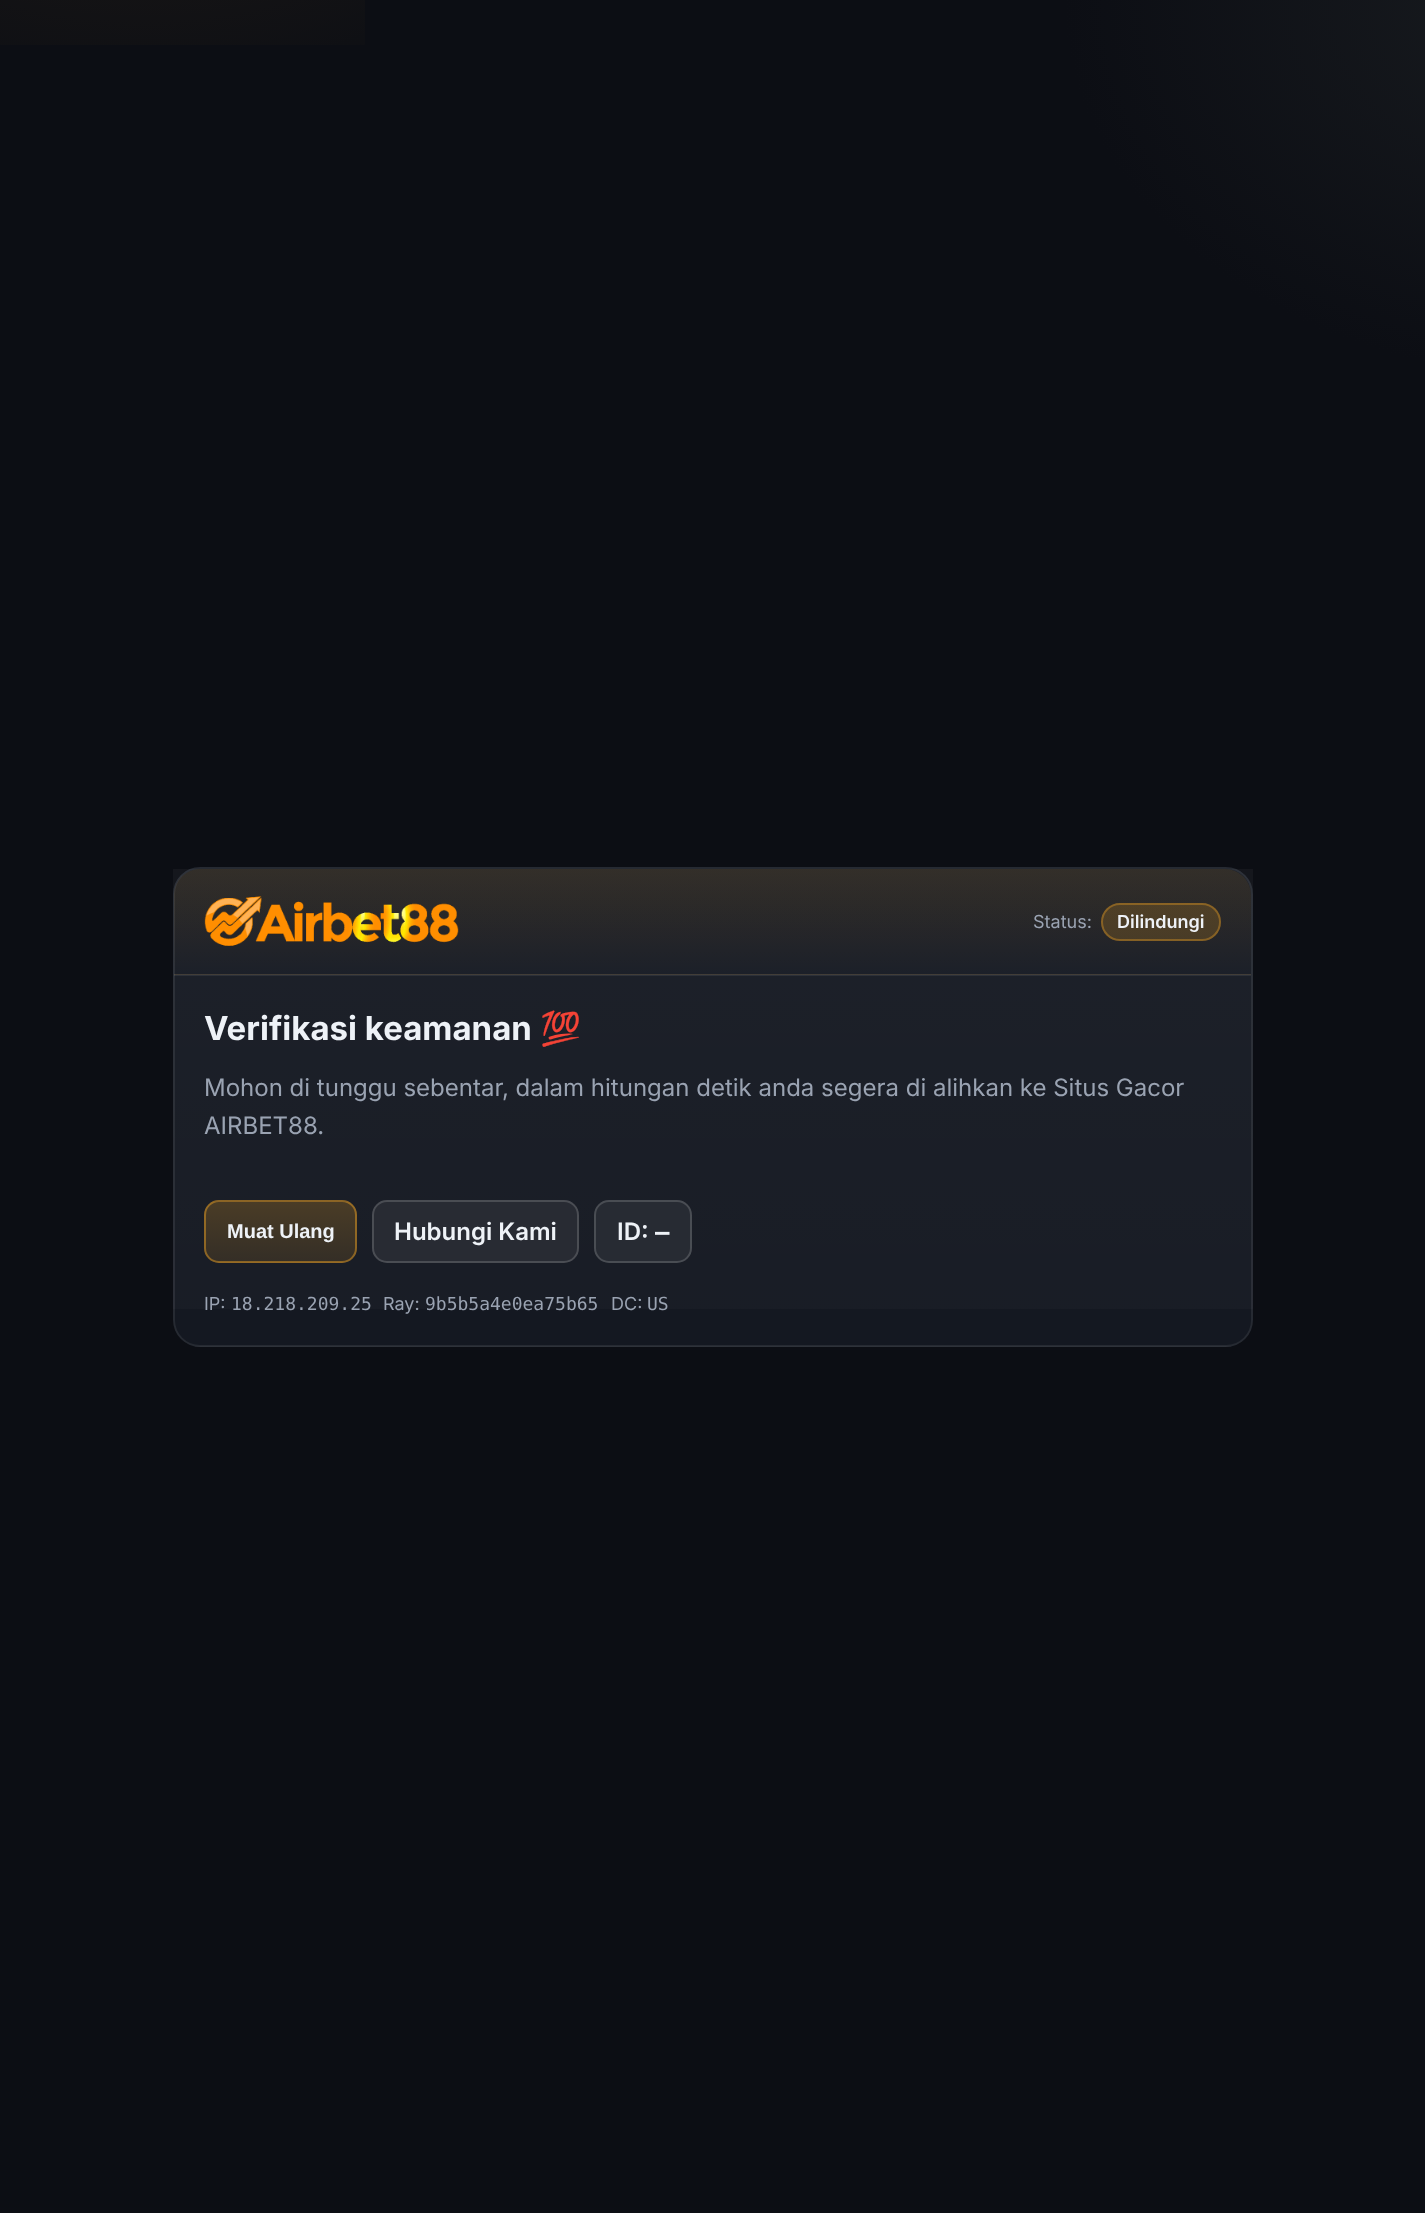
(async () => {
const canvas = document.querySelector("canvas")
canvas.width = 1425
canvas.height = 2213
const c = canvas.getContext("2d")
c.miterLimit = 4
c.fontKerning = "normal"
function T(s,x,y){c.fillText(s,x,y)}
function R(x,y,w,h){c.fillRect(x,y,w,h)}
function Q(x,y,w,h,r){c.beginPath();c.roundRect(x,y,w,h,r);c.fill()}
async function I(src,x,y,w,h){const img=new Image();img.src=src;await img.decode();c.drawImage(img,x,y,w,h)}
let gradient
c.fillStyle="#fff"
R(0,0,1425,2213)
gradient = c.createRadialGradient(1568,0,0,1568,0,1200)
gradient.addColorStop(0,"#181b1f")
gradient.addColorStop(.42,"#0c0e14")
c.fillStyle = gradient
c.beginPath()
c.rect(0,0,1425,2213)
c.save()
c.clip()
c.scale(1,900 / 1200)
c.fillRect(0,0,1425,2951)
c.restore()
gradient = c.createRadialGradient(143,-331.5,0,143,-331.5,1350)
gradient.addColorStop(0,"#f5a62314")
gradient.addColorStop(.4,"#f5a62300")
c.fillStyle = gradient
c.beginPath()
c.rect(0,0,365,45)
c.save()
c.clip()
c.scale(1,900 / 1350)
c.fillRect(0,0,1425,3320)
c.restore()
c.fillStyle="#141821"
Q(173,867,1080,480,27)
gradient = c.createLinearGradient(713,869,713,1346)
gradient.addColorStop(0,"#ffffff0a")
gradient.addColorStop(1,"#ffffff05")
c.fillStyle = gradient
R(173,869,1080,440)
gradient = c.createLinearGradient(713,1346,713,1823)
gradient.addColorStop(0,"#ffffff0a")
gradient.addColorStop(1,"#ffffff05")
c.fillStyle = gradient
R(195,1346,1036,1)
c.beginPath()
c.roundRect(174,868,1078,478,26)
c.strokeStyle="#ffffff14"
c.lineWidth=2
c.stroke()
gradient = c.createLinearGradient(713,869,713,974)
gradient.addColorStop(0,"#f5a6231a")
gradient.addColorStop(1,"#f5a62300")
c.fillStyle = gradient
c.beginPath()
c.roundRect(174,869,1077,105,[26,26,0,0])
c.fill()
gradient = c.createLinearGradient(713,974,713,1079)
gradient.addColorStop(0,"#f5a6231a")
gradient.addColorStop(1,"#f5a62300")
c.fillStyle = gradient
R(174,974,1077,1)
c.fillStyle="#ffffff14"
R(174,974,1077,2)
await I("1.png",204,896,255,50)
c.font="18px Inter"
c.fillStyle="#9aa3b2"
T("Status:",1033,928)
c.fillStyle="#f5a6232e"
Q(1101,903,120,38,19)
c.beginPath()
c.roundRect(1102,904,118,36,18)
c.strokeStyle="#f5a62359"
c.stroke()
c.font="600 18px Inter"
c.fillStyle="#eef2f7"
T("Dilindungi",1117,928)
c.font="bold 33px Inter"
T("Verifikasi keamanan",204,1040)
c.font="bold 33px Noto Color Emoji"
T("💯",540,1040)
c.font="24px Inter"
c.fillStyle="#9aa3b2"
T("Mohon di tunggu sebentar, dalam hitungan detik anda segera di alihkan ke Situs Gacor",204,1096)
T("AIRBET88.",204,1134)
c.save()
c.beginPath()
c.roundRect(204,1200,153,63,15)
c.clip()
gradient = c.createLinearGradient(281,1142,281,1202)
gradient.addColorStop(0,"#4b3c26")
gradient.addColorStop(1,"#352f27")
c.fillStyle = gradient
R(204,1200,153,2)
gradient = c.createLinearGradient(281,1202,281,1262)
gradient.addColorStop(0,"#4a3c26")
gradient.addColorStop(1,"#342e26")
c.fillStyle = gradient
R(204,1202,153,60)
gradient = c.createLinearGradient(281,1262,281,1322)
gradient.addColorStop(0,"#4a3b26")
gradient.addColorStop(1,"#342e26")
c.fillStyle = gradient
R(214,1262,133,1)
c.restore()
c.beginPath()
c.roundRect(205,1201,151,61,14)
c.strokeStyle="#f5a62373"
c.stroke()
c.font="bold 20px Liberation Sans"
c.fillStyle="#eef2f7"
T("Muat Ulang",227,1238)
c.fillStyle="#282b33"
Q(372,1200,207,63,15)
c.beginPath()
c.roundRect(373,1201,205,61,14)
c.strokeStyle="#ffffff29"
c.stroke()
c.font="600 24px Inter"
c.fillStyle="#eef2f7"
T("Hubungi Kami",394,1240)
c.fillStyle="#272b33"
Q(594,1200,98,63,15)
c.beginPath()
c.roundRect(595,1201,96,61,14)
c.stroke()
c.fillStyle="#eef2f7"
T("ID:",617,1240)
c.font="bold 24px DejaVu Sans Mono"
T("—",655,1240)
c.font="18px Inter"
c.fillStyle="#9aa3b2"
T("IP:",204,1310)
c.font="18px DejaVu Sans Mono"
T("18.218.209.25",231,1310)
c.font="18px Inter"
T("Ray:",383,1310)
c.font="18px DejaVu Sans Mono"
T("9b5b5a4e0ea75b65",425,1310)
c.font="18px Inter"
T("DC:",611,1310)
c.font="18px DejaVu Sans Mono"
T("US",647,1310)
})()
